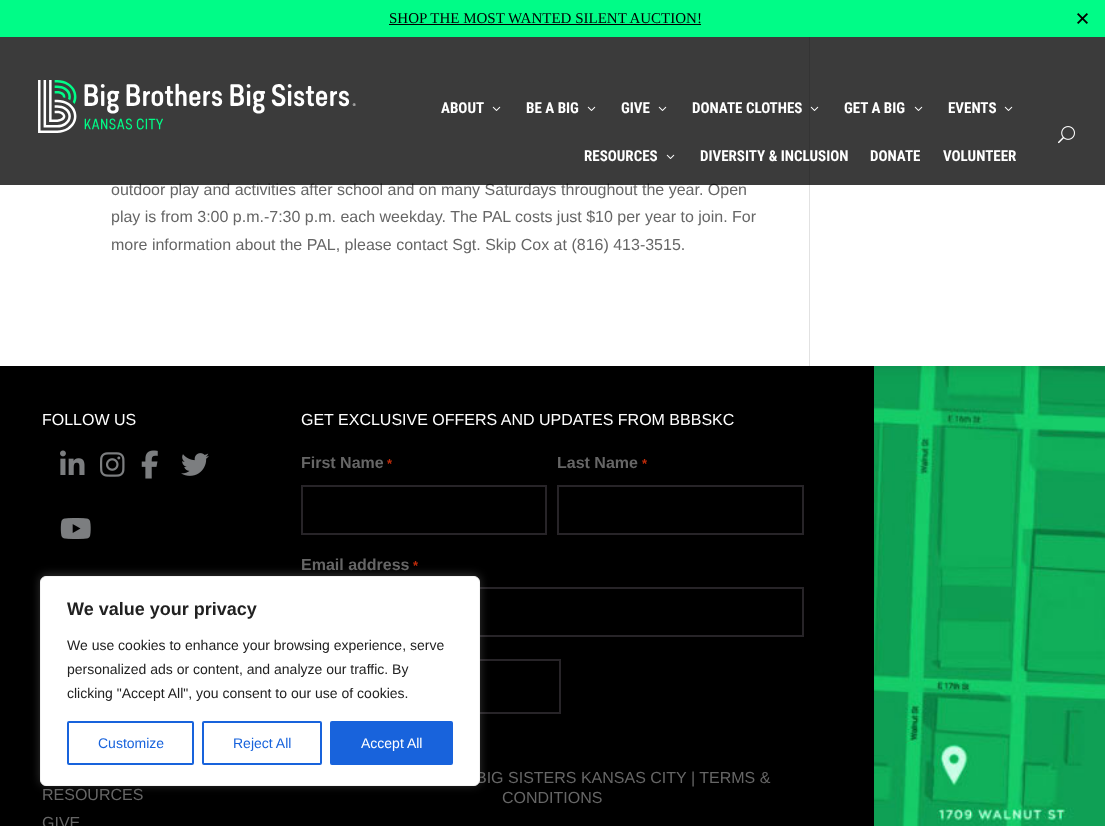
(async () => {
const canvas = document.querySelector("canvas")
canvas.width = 1105
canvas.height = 826
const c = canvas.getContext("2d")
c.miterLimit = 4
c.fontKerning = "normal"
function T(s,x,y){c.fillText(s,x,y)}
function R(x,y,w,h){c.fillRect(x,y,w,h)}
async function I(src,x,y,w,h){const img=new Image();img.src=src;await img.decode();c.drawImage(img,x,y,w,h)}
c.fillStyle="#fff"
R(0,0,1105,826)
c.fillStyle="#00fc87"
R(0,0,1105,37)
c.font="15px Liberation Serif"
c.fillStyle="#000"
T("SHOP THE MOST WANTED SILENT AUCTION!",389,23)
R(389,24,312,1)
await I("1.png",1077,13,11,11)
c.font="16px Liberation Sans"
c.fillStyle="#666"
T("outdoor play and activities after school and on many Saturdays throughout the year. Open",111,195)
c.fillStyle="#e2e2e2"
R(809,37,1,329)
c.fillStyle="#000000c4"
R(0,37,1105,148)
await I("2.png",38,80,318,53)
c.font="bold 15px Roboto Condensed"
c.fillStyle="#fff"
T("ABOUT",441,113)
await I("3.png",492,106,9,5)
T("BE A BIG",526,113)
await I("4.png",587,106,9,5)
T("GIVE",621,113)
await I("5.png",658,106,9,5)
T("DONATE CLOTHES",692,113)
await I("6.png",810,106,9,5)
T("GET A BIG",844,113)
await I("6.png",914,106,9,5)
T("EVENTS",948,113)
await I("6.png",1004,106,9,5)
T("RESOURCES",584,161)
await I("6.png",666,154,9,5)
T("DIVERSITY & INCLUSION",700,161)
T("DONATE",870,161)
T("VOLUNTEER",943,161)
await I("7.png",1058,126,17,18)
c.font="16px Liberation Sans"
c.fillStyle="#666"
T("play is from 3:00 p.m.-7:30 p.m. each weekday. The PAL costs just $10 per year to join. For",111,222)
T("more information about the PAL, please contact Sgt. Skip Cox at (816) 413-3515.",111,250)
c.fillStyle="#000"
R(0,366,874,460)
c.fillStyle="#fff"
T("FOLLOW US",42,425)
await I("8.png",60,450,25,25)
await I("9.png",100,452,25,25)
await I("10.png",141,450,17,29)
await I("11.png",181,453,28,23)
await I("12.png",60,518,31,21)
c.fillStyle="#666"
T("RESOURCES",42,800)
T("GIVE",42,828)
c.fillStyle="#fff"
T("GET EXCLUSIVE OFFERS AND UPDATES FROM BBBSKC",301,425)
c.font="bold 16px Liberation Sans"
c.fillStyle="#666"
T("First Name",301,468)
c.font="bold 13px Liberation Sans"
c.fillStyle="#c02b0a"
T("*",387,468)
c.strokeStyle="#272428"
c.lineWidth=2
c.strokeRect(302,486,244,48)
c.font="bold 16px Liberation Sans"
c.fillStyle="#666"
T("Last Name",557,468)
c.font="bold 13px Liberation Sans"
c.fillStyle="#c02b0a"
T("*",642,468)
c.strokeRect(558,486,245,48)
c.font="bold 16px Liberation Sans"
c.fillStyle="#666"
T("Email address",301,570)
c.font="bold 13px Liberation Sans"
c.fillStyle="#c02b0a"
T("*",413,570)
c.strokeRect(302,588,501,48)
c.strokeRect(302,660,258,53)
c.font="16px Liberation Sans"
c.fillStyle="#666"
T("BIG SISTERS KANSAS CITY | TERMS &",476,783)
T("CONDITIONS",502,803)
await I("13.png",874,366,231,460)
c.fillStyle="#acabab4d"
c.filter="blur(5px)"
c.beginPath()
c.roundRect(40,575,440,210,6)
c.fill()
c.filter="none"
c.fillStyle="#fff"
c.beginPath()
c.roundRect(40.5,576.5,439,209,5.5)
c.fill()
c.strokeStyle="#f4f4f4"
c.lineWidth=1
c.stroke()
c.font="bold 18px Liberation Sans"
c.fillStyle="#212121"
T("We value your privacy",67,615)
c.font="14px Liberation Sans"
T("We use cookies to enhance your browsing experience, serve",67,650)
T("personalized ads or content, and analyze our traffic. By",67,674)
T("clicking \"Accept All\", you consent to our use of cookies.",67,698)
c.beginPath()
c.roundRect(68,722,125,42,1)
c.strokeStyle="#1863dc"
c.lineWidth=2
c.stroke()
c.fillStyle="#1863dc"
T("Customize",98,748)
c.beginPath()
c.roundRect(203,722,118,42,1)
c.stroke()
T("Reject All",233,748)
c.beginPath()
c.roundRect(331,722,121,42,1)
c.fill()
c.stroke()
c.fillStyle="#fff"
T("Accept All",361,748)
})()
